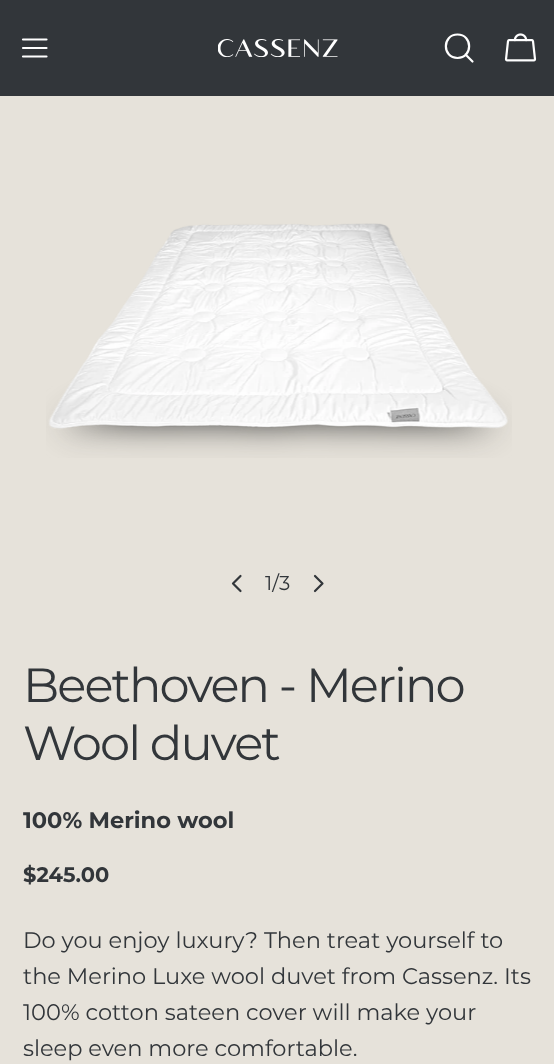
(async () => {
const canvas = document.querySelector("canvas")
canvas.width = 554
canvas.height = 1064
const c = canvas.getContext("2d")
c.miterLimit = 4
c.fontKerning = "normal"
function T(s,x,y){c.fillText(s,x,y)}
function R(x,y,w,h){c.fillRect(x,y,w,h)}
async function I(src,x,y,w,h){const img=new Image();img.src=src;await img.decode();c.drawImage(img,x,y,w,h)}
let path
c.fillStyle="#e6e2da"
R(0,0,554,1064)
c.fillStyle="#32363a"
R(0,0,554,96)
path = new Path2D("M23 48h23.5m-23.5-8.5h23.5m-23.5 17h23.5")
c.strokeStyle="#fff"
c.lineWidth=2.2
c.lineCap="round"
c.lineJoin="round"
c.stroke(path)
await I("1.png",218,39,120,18)
path = new Path2D("M457.5 58c15.5 0 15.5-23.5 0-23.5c-15.5 0-15.5 23.5 0 23.5zm8-3.5l7 7")
c.stroke(path)
await I("2.png",504,33,33,29)
await I("3.png",46,223,466,235)
path = new Path2D("M240.5 591l-7.5-7.5l7.5-7.5")
c.strokeStyle="#32363a"
c.stroke(path)
c.font="20px Montserrat"
T("1/3",265,590)
path = new Path2D("M315 576l7.5 7.5l-7.5 7.5")
c.stroke(path)
c.letterSpacing="-1.9px"
c.font="48px Montserrat"
T("Beethoven - Merino",23,702)
T("Wool duvet",23,760)
c.letterSpacing="0px"
c.font="bold 22.5px Montserrat"
T("100% Merino wool",23,828)
c.font="bold 21px Montserrat"
T("$245.00",23,882)
c.font="22.5px Montserrat"
T("Do you enjoy luxury? Then treat yourself to",23,948)
T("the Merino Luxe wool duvet from Cassenz. Its",23,984)
T("100% cotton sateen cover will make your",23,1020)
T("sleep even more comfortable.",23,1056)
})()
